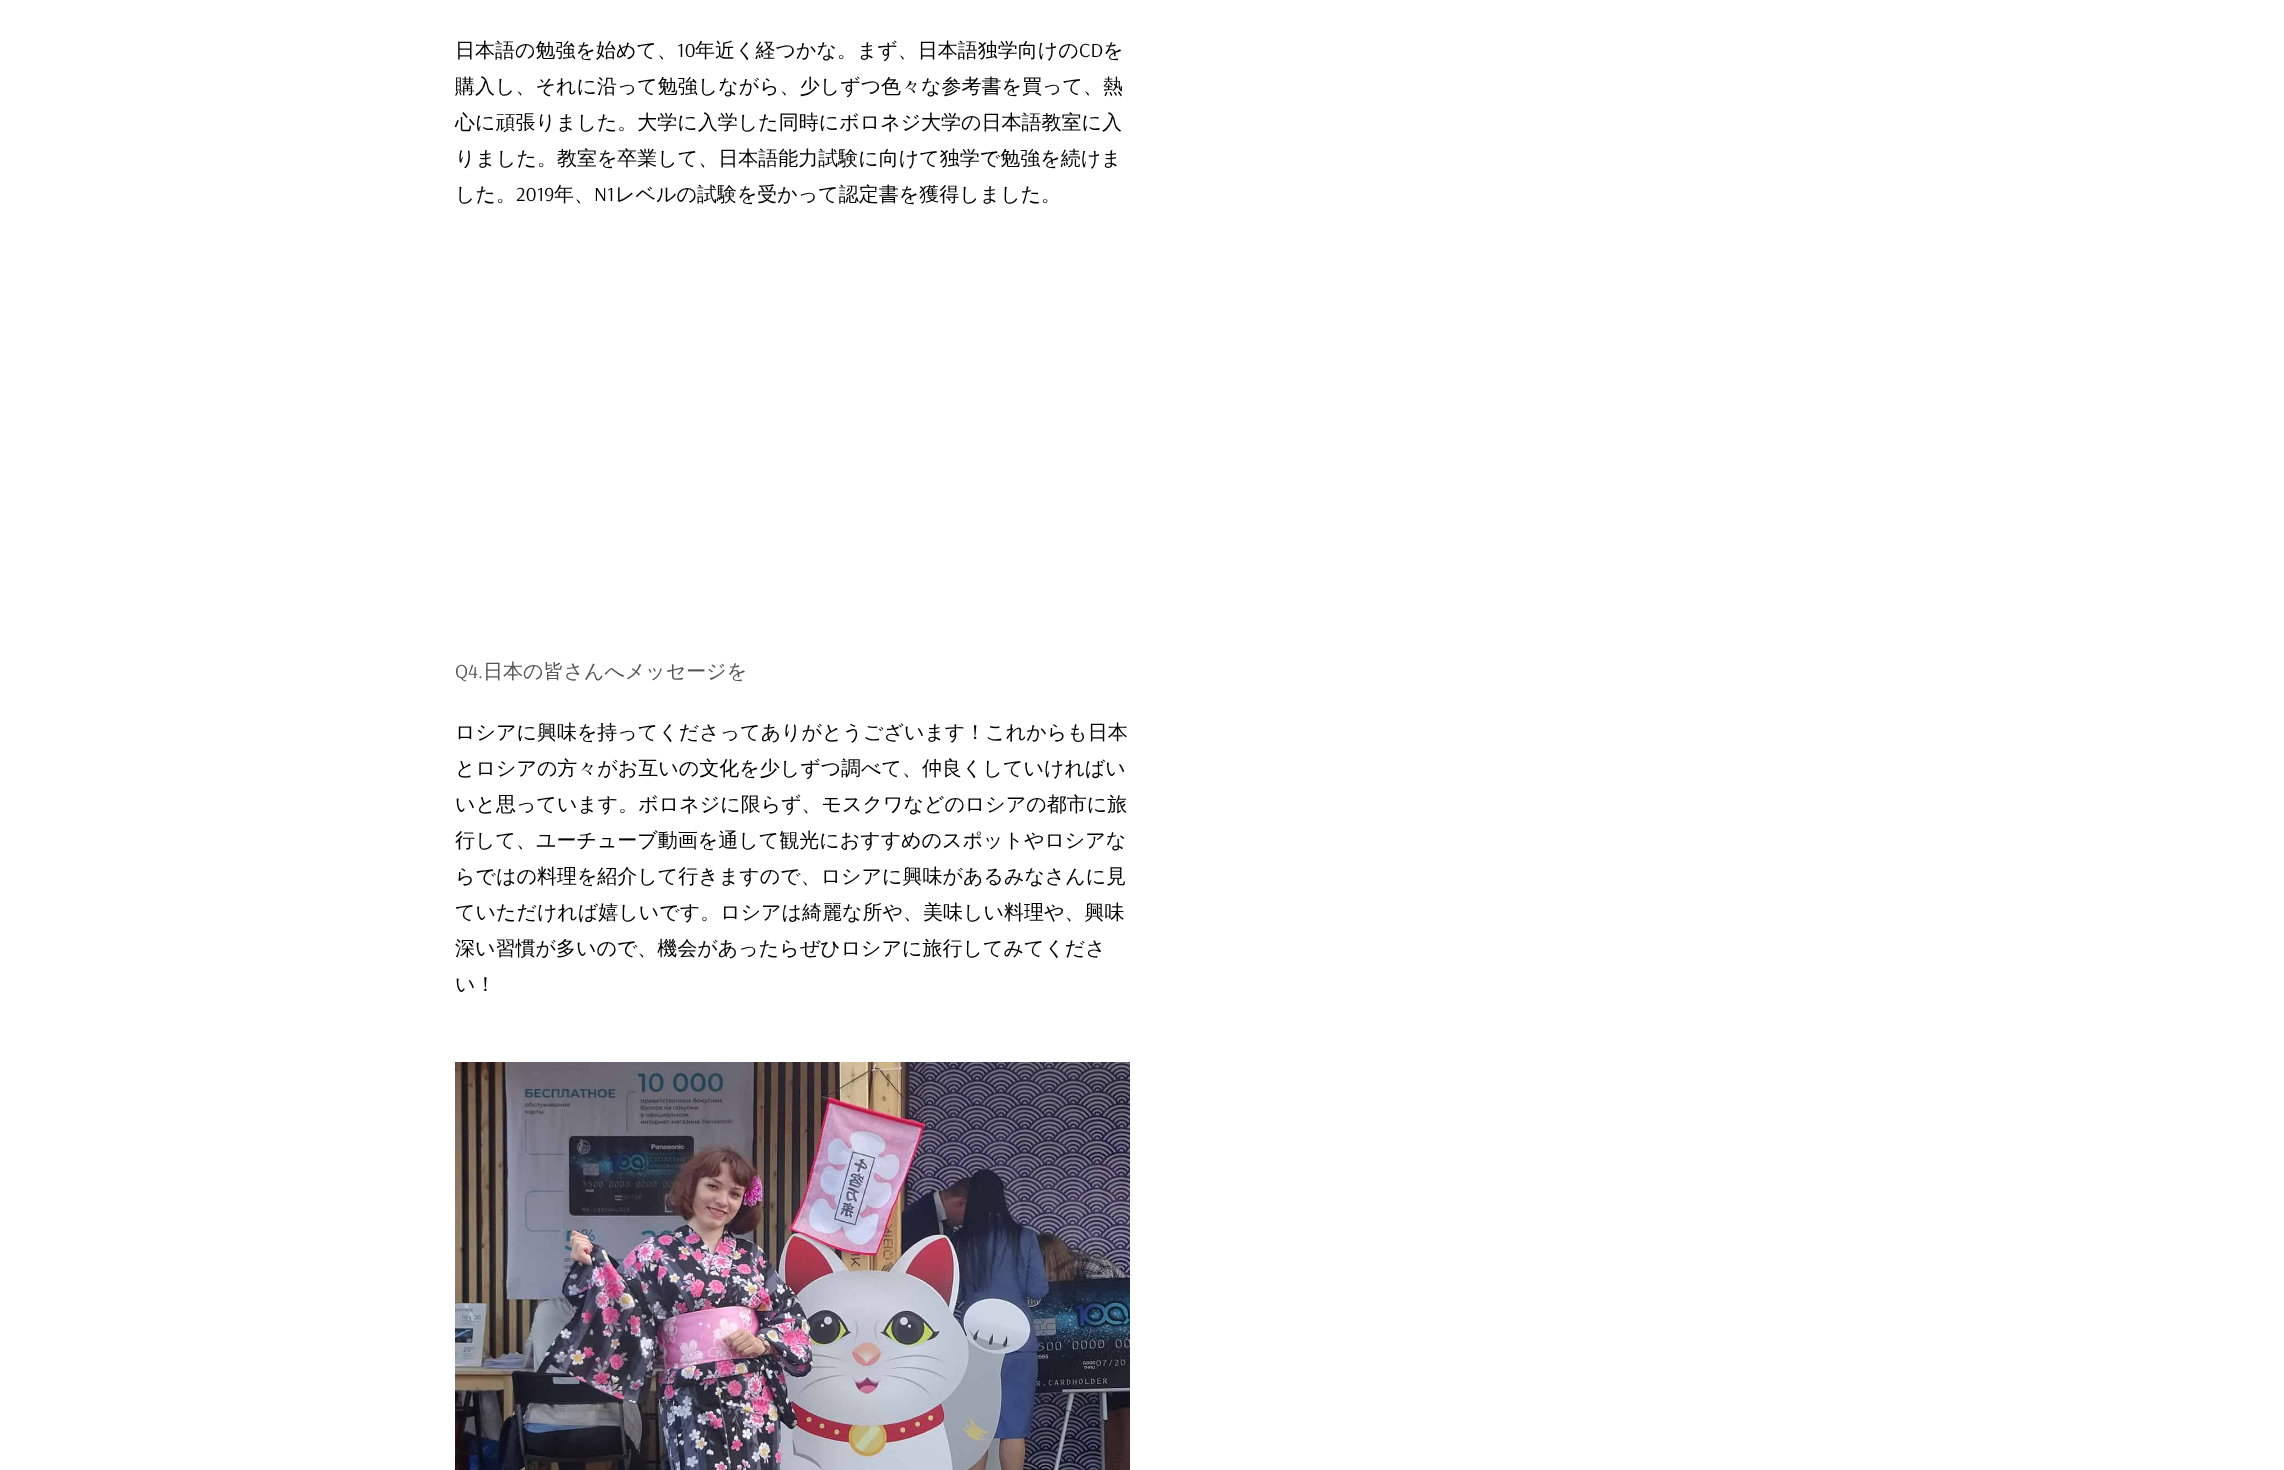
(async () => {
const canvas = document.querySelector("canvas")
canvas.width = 2284
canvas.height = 1470
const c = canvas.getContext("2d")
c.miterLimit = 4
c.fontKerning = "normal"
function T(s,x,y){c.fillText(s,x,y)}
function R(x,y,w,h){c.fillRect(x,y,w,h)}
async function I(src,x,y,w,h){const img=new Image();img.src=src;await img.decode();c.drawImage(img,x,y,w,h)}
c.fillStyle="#fff"
R(0,0,2284,1470)
c.font="500 20px WenQuanYi Zen Hei"
c.fillStyle="#000"
T("日本語の勉強を始めて、",455,57)
c.font="20px Arsenal"
T("10",677,57)
c.font="500 20px WenQuanYi Zen Hei"
T("年近く経つかな。まず、日本語独学向けの",695,57)
c.font="20px Arsenal"
T("CD",1079,57)
c.font="500 20px WenQuanYi Zen Hei"
T("を",1103,57)
T("購入し、それに沿って勉強しながら、少しずつ色々な参考書を買って、熱",455,93)
T("心に頑張りました。大学に入学した同時にボロネジ大学の日本語教室に入",455,129)
T("りました。教室を卒業して、日本語能力試験に向けて独学で勉強を続けま",455,165)
T("した。",455,201)
c.font="20px Arsenal"
T("2019",516,201)
c.font="500 20px WenQuanYi Zen Hei"
T("年、",554,201)
c.font="20px Arsenal"
T("N1",594,201)
c.font="500 20px WenQuanYi Zen Hei"
T("レベルの試験を受かって認定書を獲得しました。",615,201)
c.font="20px Arsenal"
c.fillStyle="#555"
T("Q4.",455,678)
c.font="500 20px WenQuanYi Zen Hei"
T("日本の皆さんへメッセージを",483,678)
c.fillStyle="#000"
T("ロシアに興味を持ってくださってありがとうございます！これからも日本",455,739)
T("とロシアの方々がお互いの文化を少しずつ調べて、仲良くしていければい",455,775)
T("いと思っています。ボロネジに限らず、モスクワなどのロシアの都市に旅",455,811)
T("行して、ユーチューブ動画を通して観光におすすめのスポットやロシアな",455,847)
T("らではの料理を紹介して行きますので、ロシアに興味があるみなさんに見",455,883)
T("ていただければ嬉しいです。ロシアは綺麗な所や、美味しい料理や、興味",455,919)
T("深い習慣が多いので、機会があったらぜひロシアに旅行してみてくださ",455,955)
T("い！",455,991)
await I("1.png",455,1062,675,408)
})()
